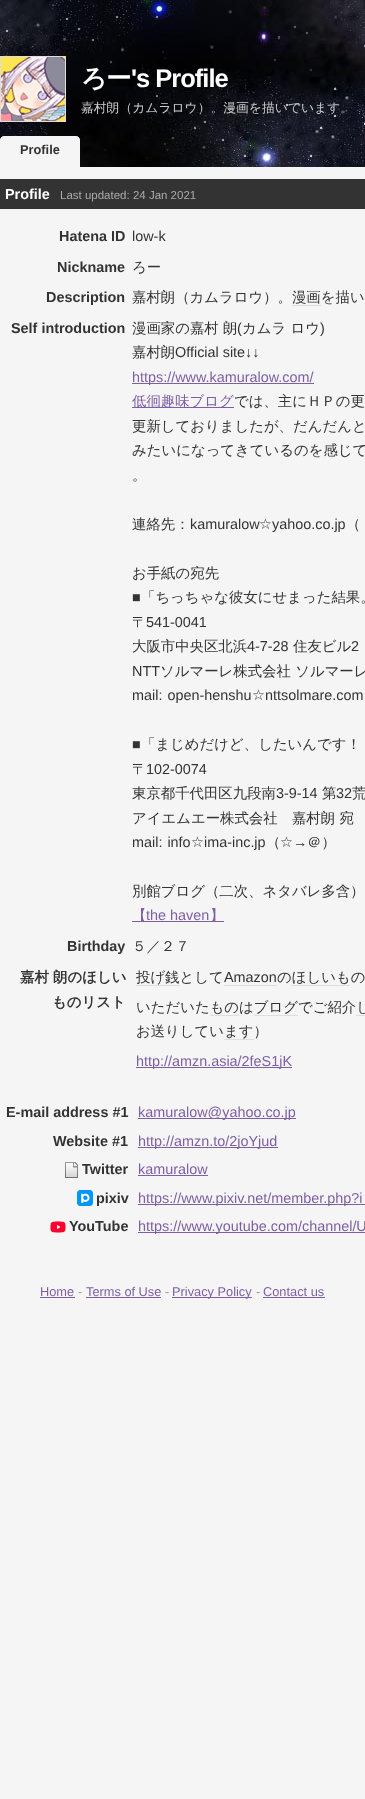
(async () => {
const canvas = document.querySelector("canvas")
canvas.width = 365
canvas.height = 1799
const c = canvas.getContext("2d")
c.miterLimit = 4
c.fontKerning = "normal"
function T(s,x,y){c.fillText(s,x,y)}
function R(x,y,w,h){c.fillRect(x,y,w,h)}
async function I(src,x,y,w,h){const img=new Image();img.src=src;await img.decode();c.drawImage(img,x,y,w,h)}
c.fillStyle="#f5f5f5"
R(0,0,365,1799)
await I("1.png",0,0,365,37)
await I("2.png",0,37,365,130)
c.strokeStyle="#dedede"
c.strokeRect(.5,56.5,65,65)
await I("3.png",1,57,64,64)
c.letterSpacing="-1px"
c.font="bold 25.5px WenQuanYi Zen Hei"
c.fillStyle="#fff"
T("ろー",81,87)
c.font="bold 25.5px Liberation Sans"
T("'s Profile",131,87)
c.letterSpacing="0px"
c.font="500 12.8px WenQuanYi Zen Hei"
c.fillStyle="#cdcdcd"
T("嘉村朗（カムラロウ）。漫画を描いています。",81,112)
await I("4.png",0,136,80,31)
c.font="bold 12.8px Liberation Sans"
c.fillStyle="#333"
T("Profile",20,154)
R(0,179,365,30)
c.font="bold 14.4px Liberation Sans"
c.fillStyle="#fff"
T("Profile",5,199)
c.font="11.5px Liberation Sans"
c.fillStyle="#aaa"
T("Last updated: 24 Jan 2021",60,199)
c.font="bold 14.4px Liberation Sans"
c.fillStyle="#333"
T("Hatena ID",59,241)
c.font="14.4px Liberation Sans"
T("low-k",132,241)
c.font="bold 14.4px Liberation Sans"
T("Nickname",57,272)
c.font="500 14.4px WenQuanYi Zen Hei"
T("ろー",132,272)
c.font="bold 14.4px Liberation Sans"
T("Description",46,302)
c.font="500 14.4px WenQuanYi Zen Hei"
T("嘉村朗（カムラロウ）。漫画を描い",132,302)
c.fillStyle="#dedede"
R(292,305,29,1)
c.font="bold 14.4px Liberation Sans"
c.fillStyle="#333"
T("Self introduction",11,333)
c.font="500 14.4px WenQuanYi Zen Hei"
T("漫画家の嘉村 朗",132,333)
c.font="14.4px Liberation Sans"
T("(",237,333)
c.font="500 14.4px WenQuanYi Zen Hei"
T("カムラ ロウ",242,333)
c.font="14.4px Liberation Sans"
T(")",320,333)
c.font="500 14.4px WenQuanYi Zen Hei"
T("嘉村朗",132,357)
c.font="14.4px Liberation Sans"
T("Official site↓↓",175,357)
c.fillStyle="#7e5fa4"
R(132,383,182,1)
T("https://www.kamuralow.com/",132,382)
R(132,407,102,1)
c.font="500 14.4px WenQuanYi Zen Hei"
T("低徊趣味ブログ",132,406)
c.fillStyle="#333"
T("では、主にＨＰの更",234,406)
T("更新しておりましたが、だんだんと",132,431)
T("みたいになってきているのを感じて",132,455)
T("。",132,480)
T("連絡先：",132,529)
c.font="14.4px Liberation Sans"
T("kamuralow",190,529)
c.font="14.4px DejaVu Sans"
T("☆",259,529)
c.font="14.4px Liberation Sans"
T("yahoo.co.jp",272,529)
c.font="500 14.4px WenQuanYi Zen Hei"
T("（",346,529)
T("お手紙の宛先",132,578)
c.font="14.4px Liberation Sans"
T("■",132,602)
c.font="500 14.4px WenQuanYi Zen Hei"
T("「ちっちゃな彼女にせまった結果。",141,602)
T("〒",132,627)
c.font="14.4px Liberation Sans"
T("541-0041",146,627)
c.font="500 14.4px WenQuanYi Zen Hei"
T("大阪市中央区北浜",132,651)
c.font="14.4px Liberation Sans"
T("4-7-28",247,651)
c.font="500 14.4px WenQuanYi Zen Hei"
T("住友ビル",293,651)
c.font="14.4px Liberation Sans"
T("2",351,651)
T("NTT",132,676)
c.font="500 14.4px WenQuanYi Zen Hei"
T("ソルマーレ株式会社 ソルマーレ",160,676)
c.wordSpacing="1px"
c.font="14.4px Liberation Sans"
T("mail: open-henshu",132,700)
c.wordSpacing="0px"
c.font="14.4px DejaVu Sans"
T("☆",252,700)
c.font="14.4px Liberation Sans"
T("nttsolmare.com",265,700)
T("■",132,749)
c.font="500 14.4px WenQuanYi Zen Hei"
T("「まじめだけど、したいんです！",141,749)
T("〒",132,774)
c.font="14.4px Liberation Sans"
T("102-0074",146,774)
c.font="500 14.4px WenQuanYi Zen Hei"
T("東京都千代田区九段南",132,798)
c.font="14.4px Liberation Sans"
T("3-9-14",276,798)
c.font="500 14.4px WenQuanYi Zen Hei"
T("第",322,798)
c.font="14.4px Liberation Sans"
T("32",336,798)
c.font="500 14.4px WenQuanYi Zen Hei"
T("荒",352,798)
T("アイエムエー株式会社　嘉村朗 宛",132,823)
c.wordSpacing="1px"
c.font="14.4px Liberation Sans"
T("mail: info",132,847)
c.wordSpacing="0px"
c.font="14.4px DejaVu Sans"
T("☆",191,847)
c.font="14.4px Liberation Sans"
T("ima-inc.jp",204,847)
c.font="500 14.4px WenQuanYi Zen Hei"
T("（",266,847)
c.font="14.4px DejaVu Sans"
T("☆",280,847)
c.font="14.4px Liberation Sans"
T("→",293,847)
c.font="500 14.4px WenQuanYi Zen Hei"
T("＠）",307,847)
T("別館ブログ（二次、ネタバレ多含）",132,896)
c.fillStyle="#7e5fa4"
R(132,921,92,1)
T("【",132,920)
c.font="14.4px Liberation Sans"
T("the haven",146,920)
c.font="500 14.4px WenQuanYi Zen Hei"
T("】",210,920)
c.font="bold 14.4px Liberation Sans"
c.fillStyle="#333"
T("Birthday",67,951)
c.font="500 14.4px WenQuanYi Zen Hei"
T("５／２７",132,951)
c.font="bold 14.4px WenQuanYi Zen Hei"
T("嘉村 朗のほしい",20,982)
T("ものリスト",52,1007)
c.font="500 14.4px WenQuanYi Zen Hei"
T("投げ銭として",136,982)
c.fillStyle="#dedede"
R(136,985,44,1)
c.font="14.4px Liberation Sans"
c.fillStyle="#333"
T("Amazon",224,982)
c.fillStyle="#dedede"
R(224,985,53,1)
c.font="500 14.4px WenQuanYi Zen Hei"
c.fillStyle="#333"
T("のほしいもの",277,982)
c.fillStyle="#dedede"
R(291,985,59,1)
c.fillStyle="#333"
T("いただいたものはブログでご紹介し",136,1012)
c.fillStyle="#dedede"
R(210,1015,29,1)
R(254,1015,44,1)
R(356,1015,9,1)
c.fillStyle="#333"
T("お送りしています）",136,1036)
c.fillStyle="#dedede"
R(224,1039,30,1)
c.fillStyle="#7e5fa4"
R(136,1067,156,1)
c.font="14.4px Liberation Sans"
T("http://amzn.asia/2feS1jK",136,1066)
c.font="bold 14.4px Liberation Sans"
c.fillStyle="#333"
T("E-mail address #1",6,1117)
c.fillStyle="#7e5fa4"
R(138,1118,158,1)
c.font="14.4px Liberation Sans"
T("kamuralow@yahoo.co.jp",138,1117)
c.font="bold 14.4px Liberation Sans"
c.fillStyle="#333"
T("Website #1",53,1146)
c.fillStyle="#7e5fa4"
R(138,1147,140,1)
c.font="14.4px Liberation Sans"
T("http://amzn.to/2joYjud",138,1146)
await I("5.png",65,1162,13,16)
c.font="bold 14.4px Liberation Sans"
c.fillStyle="#333"
T("Twitter",82,1174)
c.font="14.4px Liberation Sans"
c.fillStyle="#7e5fa4"
T("kamuralow",138,1174)
R(138,1175,70,1)
await I("6.png",77,1190,16,16)
c.font="bold 14.4px Liberation Sans"
c.fillStyle="#333"
T("pixiv",96,1203)
c.fillStyle="#7e5fa4"
R(138,1204,227,1)
c.font="14.4px Liberation Sans"
T("https://www.pixiv.net/member.php?i",138,1203)
await I("7.png",50,1221,16,12)
c.font="bold 14.4px Liberation Sans"
c.fillStyle="#333"
T("YouTube",69,1231)
c.fillStyle="#7e5fa4"
R(138,1232,227,1)
c.font="14.4px Liberation Sans"
T("https://www.youtube.com/channel/U",138,1231)
c.font="12.8px Liberation Sans"
T("Home",40,1296)
R(40,1297,35,1)
c.fillStyle="#999"
T("-",78,1296)
c.fillStyle="#7e5fa4"
T("Terms of Use",86,1296)
R(86,1297,75,1)
c.fillStyle="#999"
T("-",165,1296)
c.fillStyle="#7e5fa4"
R(172,1297,80,1)
T("Privacy Policy",172,1296)
c.fillStyle="#999"
T("-",256,1296)
c.fillStyle="#7e5fa4"
T("Contact us",263,1296)
R(263,1297,62,1)
})()
